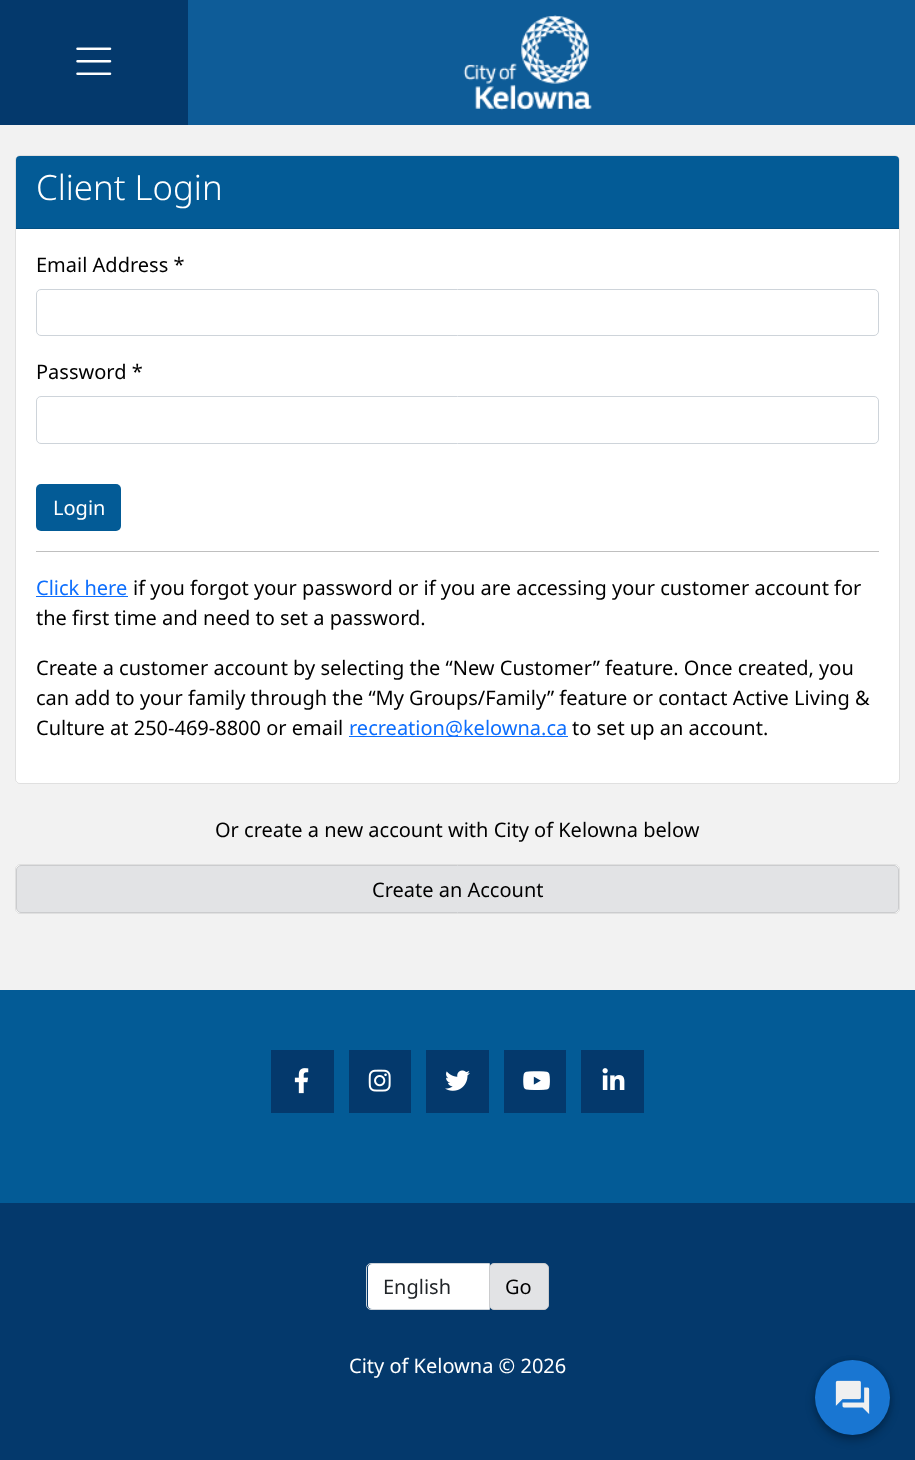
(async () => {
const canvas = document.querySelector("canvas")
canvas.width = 915
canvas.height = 1460
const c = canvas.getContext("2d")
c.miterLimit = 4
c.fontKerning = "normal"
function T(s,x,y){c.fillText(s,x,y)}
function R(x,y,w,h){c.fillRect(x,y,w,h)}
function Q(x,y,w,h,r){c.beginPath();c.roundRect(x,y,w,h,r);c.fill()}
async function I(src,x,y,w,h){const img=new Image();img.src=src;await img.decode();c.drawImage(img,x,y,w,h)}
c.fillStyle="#f2f2f2"
R(0,0,915,1460)
c.fillStyle="#0e5c98"
R(188,0,727,125)
c.fillStyle="#04396c"
R(0,0,188,125)
await I("1.png",76,47,36,28)
await I("2.png",463,15,129,96)
c.fillStyle="#fff"
Q(15,155,885,629,5)
c.beginPath()
c.roundRect(15.5,155.5,884,628,4.5)
c.strokeStyle="#0000001f"
c.stroke()
c.fillStyle="#035b96"
c.beginPath()
c.roundRect(16,156,883,73,[4,4,0,0])
c.fill()
c.fillStyle="#035083"
R(16,228,883,1)
c.font="300 34.75px Noto Sans"
c.fillStyle="#fff"
T("Client Login",36,200)
c.font="20px Noto Sans"
c.fillStyle="#000"
T("Email Address *",36,272)
c.beginPath()
c.roundRect(36.5,289.5,842,46,4.5)
c.strokeStyle="#ced4da"
c.stroke()
T("Password *",36,379)
c.beginPath()
c.roundRect(36.5,396.5,842,47,4.5)
c.stroke()
c.fillStyle="#035b96"
Q(36,484,85,47,5)
c.fillStyle="#fff"
T("Login",53,515)
c.fillStyle="#bfbfbf"
R(36,551,843,1)
c.fillStyle="#0d6efd"
T("Click here",36,595)
R(36,596,92,1)
c.fillStyle="#000"
T("if you forgot your password or if you are accessing your customer account for",133,595)
T("the first time and need to set a password.",36,625)
T("Create a customer account by selecting the “New Customer” feature. Once created, you",36,675)
T("can add to your family through the “My Groups/Family” feature or contact Active Living &",36,705)
T("Culture at 250-469-8800 or email",36,735)
c.fillStyle="#0d6efd"
R(349,736,219,1)
T("recreation@kelowna.ca",349,735)
c.fillStyle="#000"
T("to set up an account.",572,735)
T("Or create a new account with City of Kelowna below",215,837)
c.fillStyle="#fff"
Q(15,864,885,50,5)
c.beginPath()
c.roundRect(15.5,864.5,884,49,4.5)
c.strokeStyle="#0000001f"
c.stroke()
c.fillStyle="#e2e3e5"
c.beginPath()
c.roundRect(16.5,865.5,882,47,4.5)
c.fill()
c.strokeStyle="#cbccce"
c.stroke()
c.fillStyle="#000"
T("Create an Account",372,897)
c.fillStyle="#035b96"
R(0,990,915,213)
c.fillStyle="#04396c"
R(271,1050,63,63)
await I("3.png",294,1068,15,26)
R(349,1050,62,63)
await I("4.png",368,1069,23,23)
R(426,1050,63,63)
await I("5.png",445,1070,25,21)
R(504,1050,62,63)
await I("6.png",523,1071,27,19)
R(581,1050,63,63)
await I("7.png",602,1068,23,22)
R(0,1203,915,257)
c.fillStyle="#fff"
c.beginPath()
c.roundRect(368,1264,121,45,[4,0,0,4])
c.fill()
c.beginPath()
c.roundRect(366.5,1263.5,123,46,[4.5,0,0,4.5])
c.strokeStyle="#ced4da"
c.stroke()
c.fillStyle="#212529"
T("English",383,1294)
c.fillStyle="#e2e3e5"
c.beginPath()
c.roundRect(489.5,1263.5,59,46,4.5)
c.fill()
c.strokeStyle="#cbccce"
c.stroke()
c.fillStyle="#000"
T("Go",505,1294)
c.fillStyle="#fff"
T("City of Kelowna © 2026",349,1373)
c.fillStyle="#00000047"
c.filter="blur(5px)"
c.beginPath()
c.roundRect(815,1365,75,75,37.5)
c.fill()
c.filter="none"
c.fillStyle="#00000024"
c.filter="blur(2.5px)"
c.beginPath()
c.roundRect(815,1360,75,75,37.5)
c.fill()
c.filter="none"
c.fillStyle="#1976d2"
c.beginPath()
c.arc(852.5,1397.5,37.5,0,7)
c.fill()
await I("8.png",835,1380,35,34)
})()
